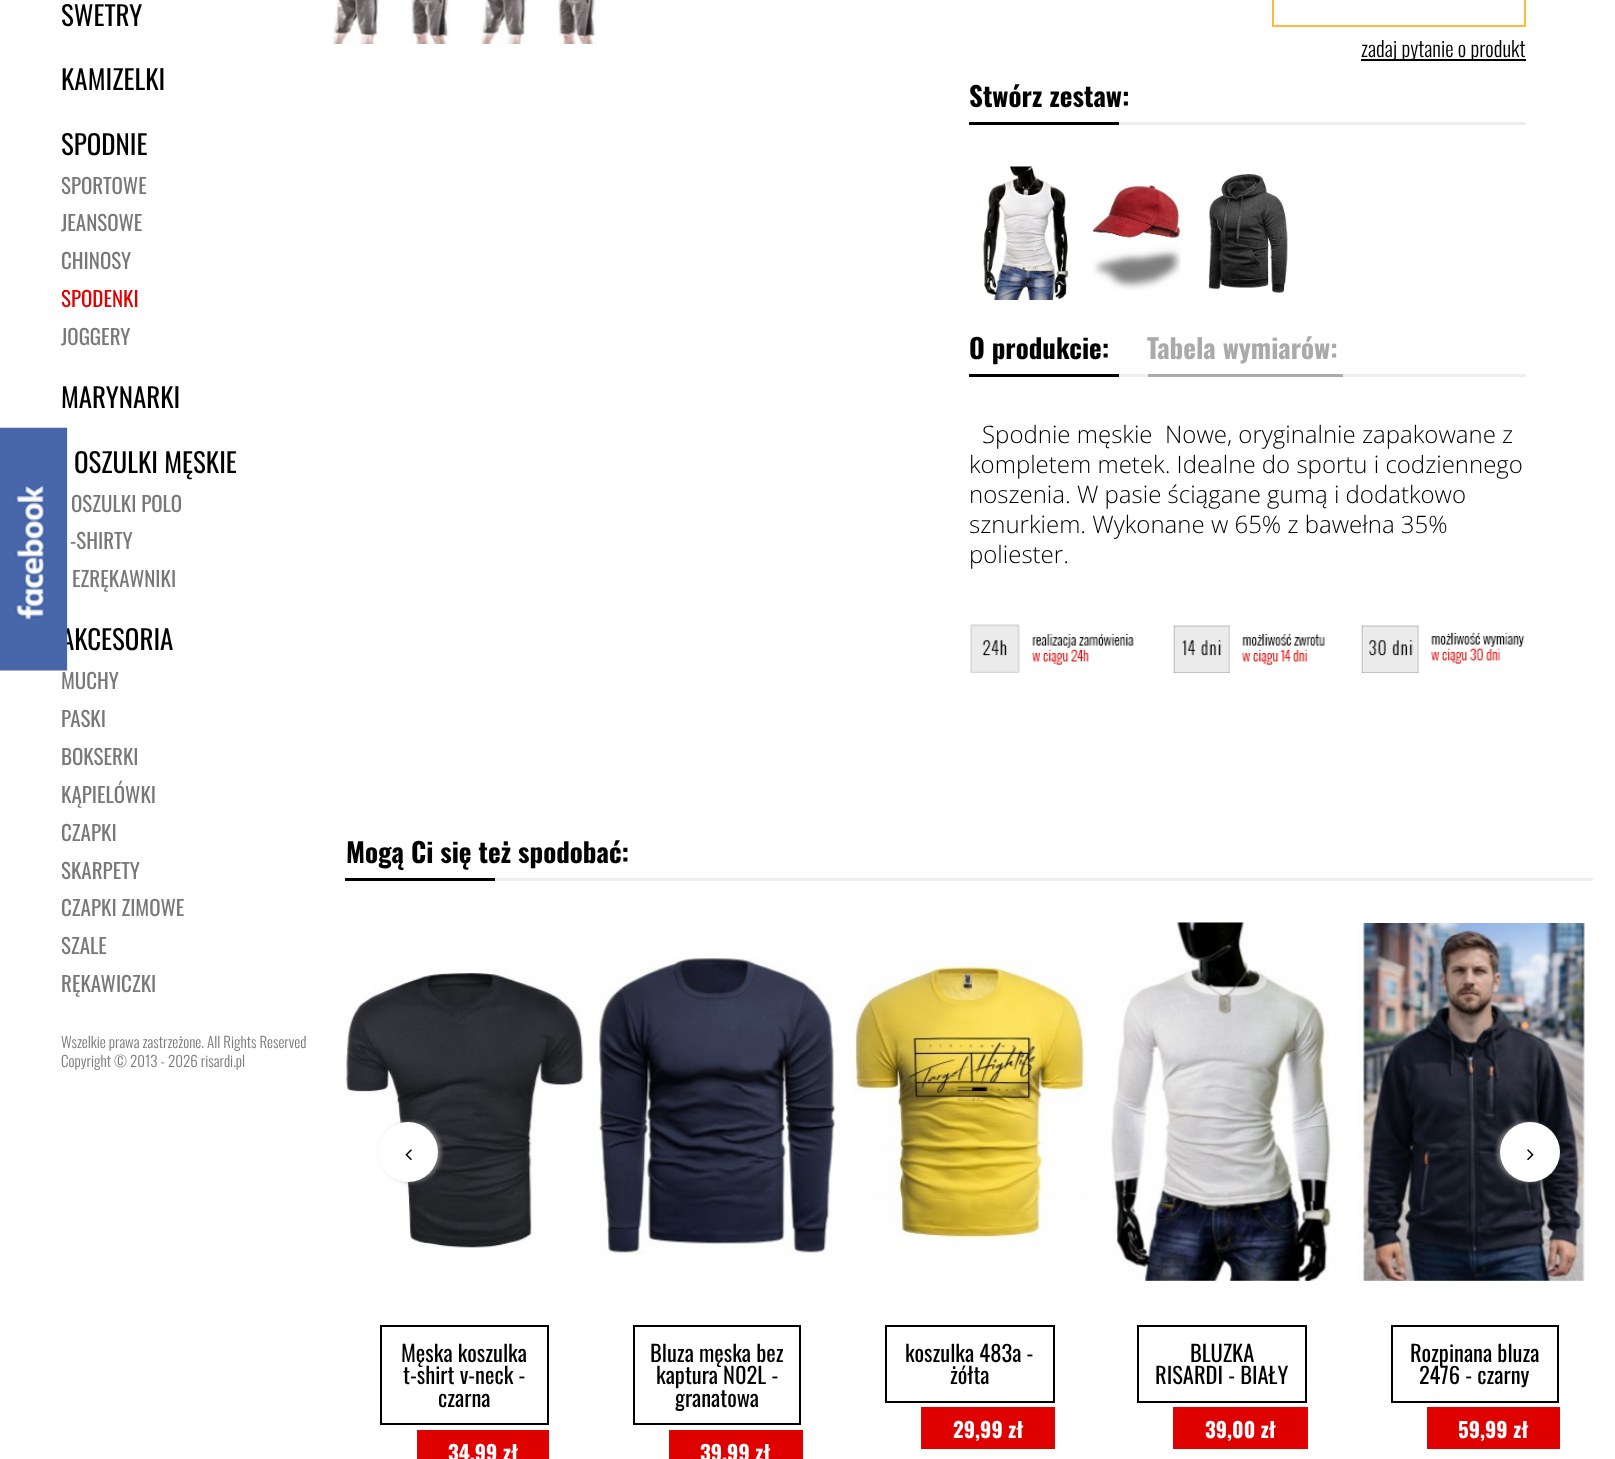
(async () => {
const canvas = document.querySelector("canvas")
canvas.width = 1615
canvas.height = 1459
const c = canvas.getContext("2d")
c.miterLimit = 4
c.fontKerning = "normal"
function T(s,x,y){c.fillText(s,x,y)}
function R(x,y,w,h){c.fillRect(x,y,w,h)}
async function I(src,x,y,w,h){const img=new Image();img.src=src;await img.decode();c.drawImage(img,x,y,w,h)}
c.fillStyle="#fff"
R(0,0,1615,1459)
c.font="27px Oswald"
c.fillStyle="#000"
T("AKCESORIA",61,650)
await I("1.png",0,427,68,244)
T("SWETRY",61,26)
T("KAMIZELKI",61,90)
T("SPODNIE",61,155)
c.font="21px Oswald"
c.fillStyle="#787878"
T("SPORTOWE",61,194)
T("JEANSOWE",61,231)
T("CHINOSY",61,269)
c.fillStyle="#df0000"
T("SPODENKI",61,307)
c.fillStyle="#787878"
T("JOGGERY",61,345)
c.font="27px Oswald"
c.fillStyle="#000"
T("MARYNARKI",61,408)
T("OSZULKI MĘSKIE",74,473)
c.font="21px Oswald"
c.fillStyle="#787878"
T("OSZULKI POLO",71,512)
T("-SHIRTY",70,549)
T("EZRĘKAWNIKI",72,587)
T("MUCHY",61,689)
T("PASKI",61,727)
T("BOKSERKI",61,765)
T("KĄPIELÓWKI",61,803)
T("CZAPKI",61,841)
T("SKARPETY",61,879)
T("CZAPKI ZIMOWE",61,916)
T("SZALE",61,954)
T("RĘKAWICZKI",61,992)
c.font="300 15px Oswald"
T("Wszelkie prawa zastrzeżone. All Rights Reserved",61,1048)
T("Copyright © 2013 - 2026 risardi.pl",61,1067)
await I("2.png",332,0,47,44)
await I("3.png",411,0,39,44)
await I("4.png",481,0,45,44)
await I("5.png",558,0,39,44)
c.strokeStyle="#ffba3c"
c.lineWidth=2
c.strokeRect(1273,-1,252,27)
c.fillStyle="#000"
R(1361,59,165,2)
c.font="300 21px Oswald"
T("zadaj pytanie o produkt",1361,57)
c.fillStyle="#eee"
R(1119,122,407,3)
c.font="bold 27px Oswald"
c.fillStyle="#000"
T("Stwórz zestaw:",969,107)
R(969,122,150,3)
await I("6.png",981,166,88,134)
await I("7.png",1092,183,89,108)
await I("8.png",1208,173,80,120)
c.fillStyle="#eee"
R(1119,374,407,3)
c.fillStyle="#000"
T("O produkcie:",969,359)
R(969,374,150,3)
c.fillStyle="#aaa"
T("Tabela wymiarów:",1147,359)
R(1148,374,195,3)
c.font="300 24px Open Sans"
c.fillStyle="#000"
T("Spodnie męskie  Nowe, oryginalnie zapakowane z",982,443)
T("kompletem metek. Idealne do sportu i codziennego",969,473)
T("noszenia. W pasie ściągane gumą i dodatkowo",969,503)
T("sznurkiem. Wykonane w 65% z bawełna 35%",969,533)
T("poliester.",969,563)
await I("9.png",970,624,555,50)
c.fillStyle="#eee"
R(495,878,1098,3)
c.font="bold 27px Oswald"
c.fillStyle="#000"
T("Mogą Ci się też spodobać:",346,863)
R(345,878,150,3)
await I("12.png",345,969,239,279)
c.fillStyle="#9b9b9bbf"
c.filter="blur(2px)"
c.beginPath()
c.roundRect(381,1122,60,60,30)
c.fill()
c.filter="none"
c.fillStyle="#fff"
c.beginPath()
c.arc(408,1152,30,0,7)
c.fill()
await I("10.png",405,1149,7,12)
await I("16.png",1356,923,233,358)
c.fillStyle="#9b9b9bbf"
c.filter="blur(2px)"
c.beginPath()
c.roundRect(1497,1122,60,60,30)
c.fill()
c.filter="none"
c.fillStyle="#fff"
c.beginPath()
c.arc(1530,1152,30,0,7)
c.fill()
await I("11.png",1527,1149,7,12)
c.strokeStyle="#000"
c.strokeRect(381,1326,167,98)
c.font="22.5px Oswald"
c.fillStyle="#000"
T("Męska koszulka",401,1362)
T("t-shirt v-neck -",403,1384)
T("czarna",438,1407)
c.fillStyle="#df0000"
R(417,1430,132,29)
c.font="bold 21px Oswald"
c.fillStyle="#fff"
T("34,99 zł",448,1461)
await I("13.png",598,958,238,297)
c.strokeRect(634,1326,166,98)
c.font="22.5px Oswald"
c.fillStyle="#000"
T("Bluza męska bez",650,1362)
T("kaptura N02L -",656,1384)
T("granatowa",675,1407)
c.fillStyle="#df0000"
R(669,1430,134,29)
c.font="bold 21px Oswald"
c.fillStyle="#fff"
T("39,99 zł",700,1461)
await I("14.png",850,959,236,287)
c.strokeRect(886,1326,168,76)
c.font="22.5px Oswald"
c.fillStyle="#000"
T("koszulka 483a -",905,1362)
T("żółta",950,1384)
c.fillStyle="#df0000"
R(921,1407,134,42)
c.font="bold 21px Oswald"
c.fillStyle="#fff"
T("29,99 zł",953,1438)
await I("15.png",1111,922,226,359)
c.strokeRect(1138,1326,168,76)
c.font="22.5px Oswald"
c.fillStyle="#000"
T("BLUZKA",1190,1362)
T("RISARDI - BIAŁY",1155,1384)
c.fillStyle="#df0000"
R(1173,1407,135,42)
c.font="bold 21px Oswald"
c.fillStyle="#fff"
T("39,00 zł",1205,1438)
c.strokeRect(1392,1326,166,76)
c.font="22.5px Oswald"
c.fillStyle="#000"
T("Rozpinana bluza",1410,1362)
T("2476 - czarny",1419,1384)
c.fillStyle="#df0000"
R(1427,1407,133,42)
c.font="bold 21px Oswald"
c.fillStyle="#fff"
T("59,99 zł",1458,1438)
})()
